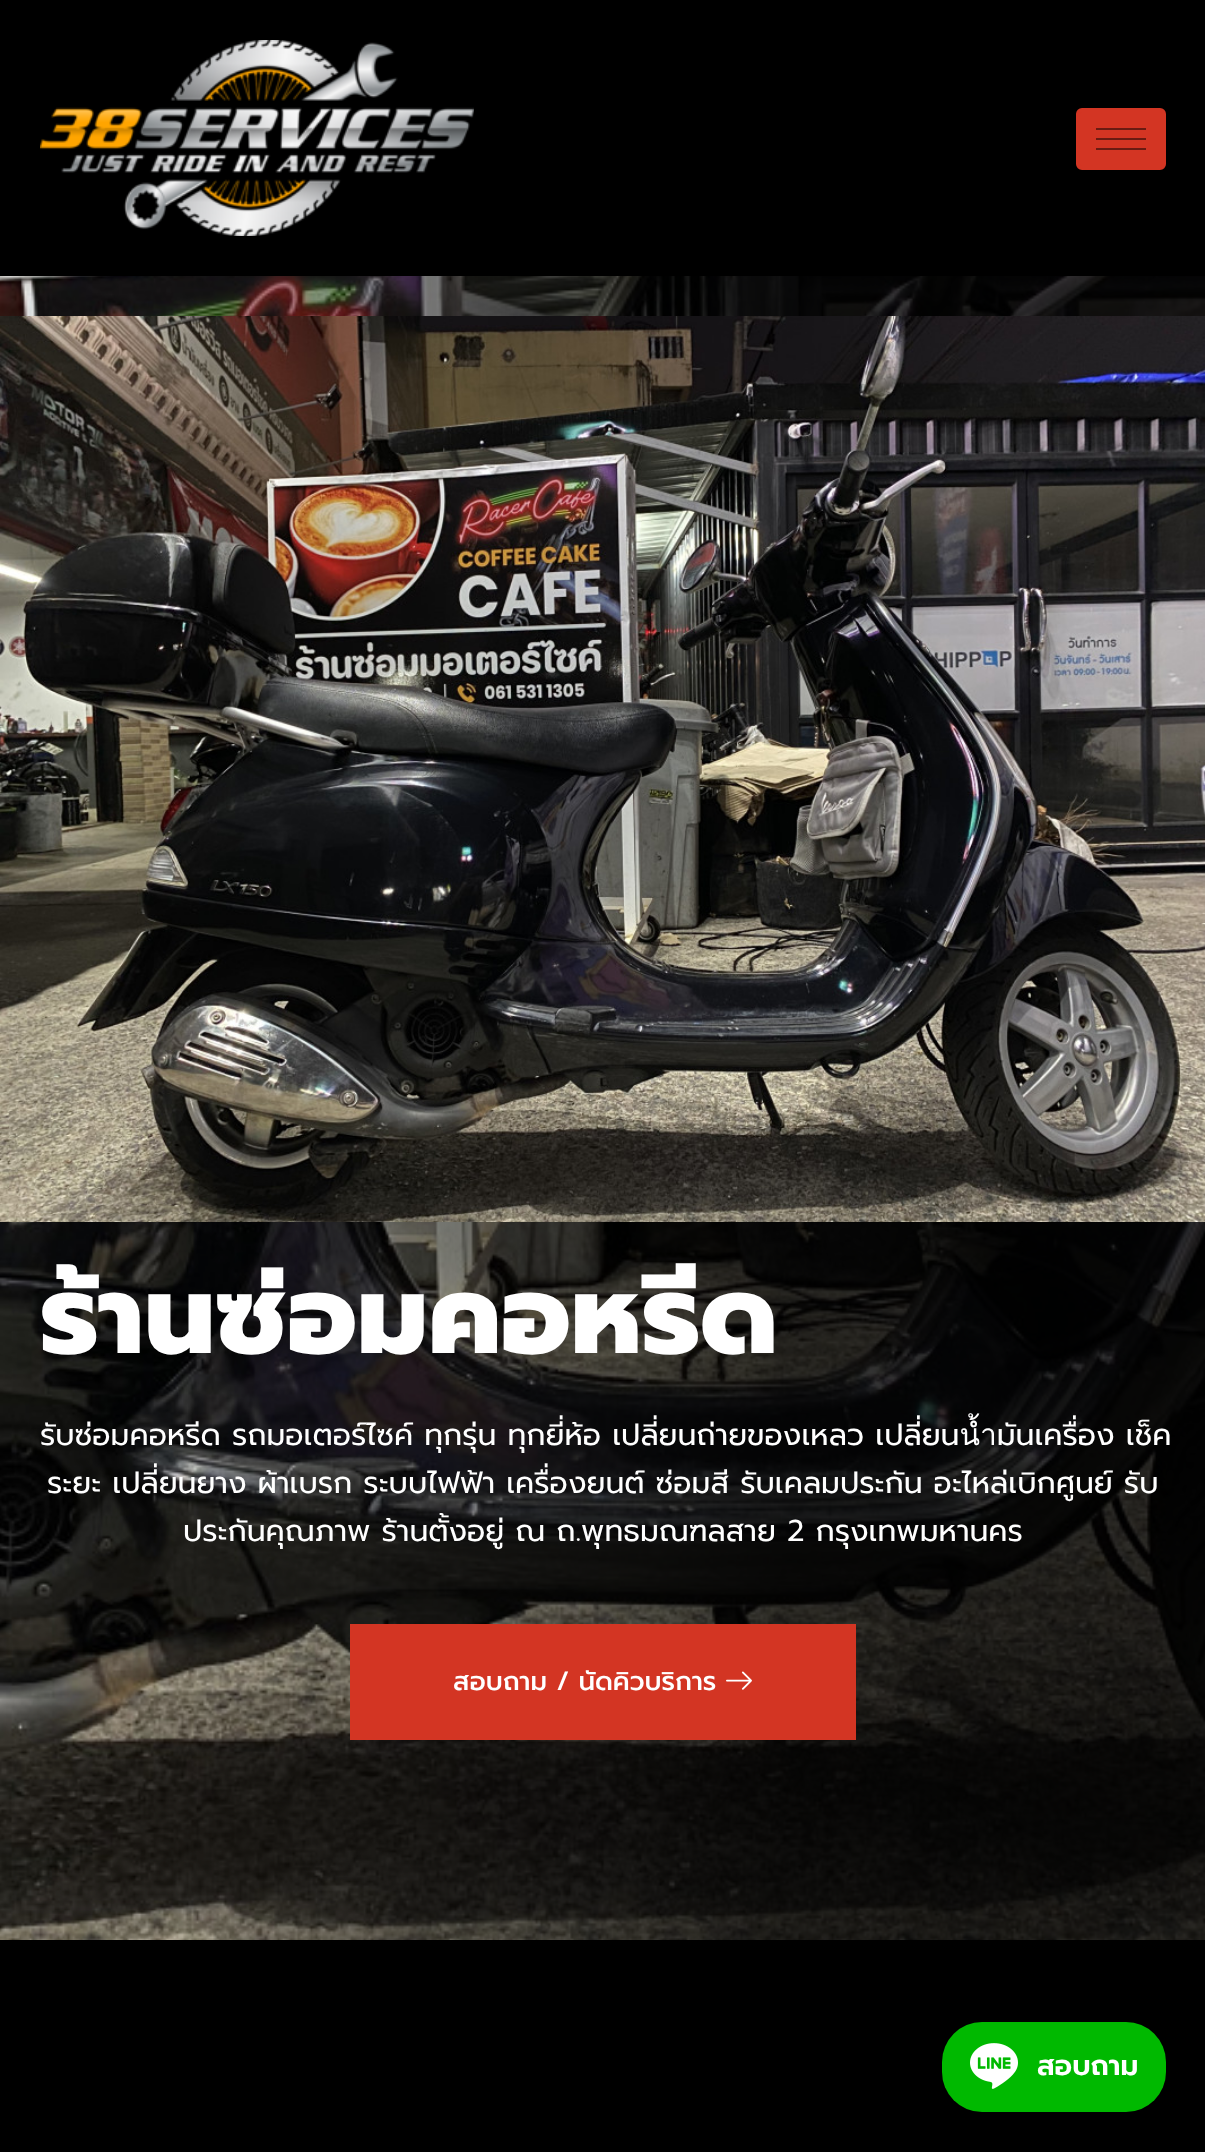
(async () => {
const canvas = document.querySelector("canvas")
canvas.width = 1205
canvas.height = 2152
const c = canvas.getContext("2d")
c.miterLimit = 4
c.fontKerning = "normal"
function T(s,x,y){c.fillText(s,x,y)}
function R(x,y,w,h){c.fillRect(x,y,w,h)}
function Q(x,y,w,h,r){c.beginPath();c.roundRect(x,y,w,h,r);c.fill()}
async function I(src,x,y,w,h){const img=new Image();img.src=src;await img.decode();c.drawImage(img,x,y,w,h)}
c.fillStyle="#fff"
R(0,0,1205,2152)
c.fillStyle="#000"
R(0,0,1205,276)
await I("1.png",40,40,434,196)
c.fillStyle="#d33523"
c.beginPath()
c.roundRect(1078,110,86,58,4)
c.fill()
c.strokeStyle="#d33523"
c.lineWidth=4
c.stroke()
c.fillStyle="#6a1b12"
R(1096,128,50,2)
R(1096,138,50,2)
R(1096,148,50,2)
await I("2.png",0,276,1205,1664)
await I("3.png",0,316,1205,906)
c.font="800 110px Prompt"
c.fillStyle="#fff"
T("ร้านซ่อมคอหรีด",40,1353)
c.font="30px Prompt"
T("รับซ่อมคอหรีด รถมอเตอร์ไซค์ ทุกรุ่น ทุกยี่ห้อ เปลี่ยนถ่ายของเหลว เปลี่ยนน้ำมันเครื่อง เช็ค",40,1445)
T("ระยะ เปลี่ยนยาง ผ้าเบรก ระบบไฟฟ้า เครื่องยนต์ ซ่อมสี รับเคลมประกัน อะไหล่เบิกศูนย์ รับ",47,1493)
T("ประกันคุณภาพ ร้านตั้งอยู่ ณ ถ.พุทธมณฑลสาย 2 กรุงเทพมหานคร",183,1541)
c.fillStyle="#d33523"
R(350,1624,506,116)
c.font="500 26px Prompt"
c.fillStyle="#fff"
T("สอบถาม / นัดคิวบริการ",453,1690)
await I("4.png",726,1671,26,19)
c.fillStyle="#000"
R(0,1940,1205,212)
c.fillStyle="#00b900"
Q(942,2022,224,90,40)
await I("5.png",970,2043,48,46)
c.font="600 28px Prompt"
c.fillStyle="#fff"
T("สอบถาม",1037,2075)
})()
